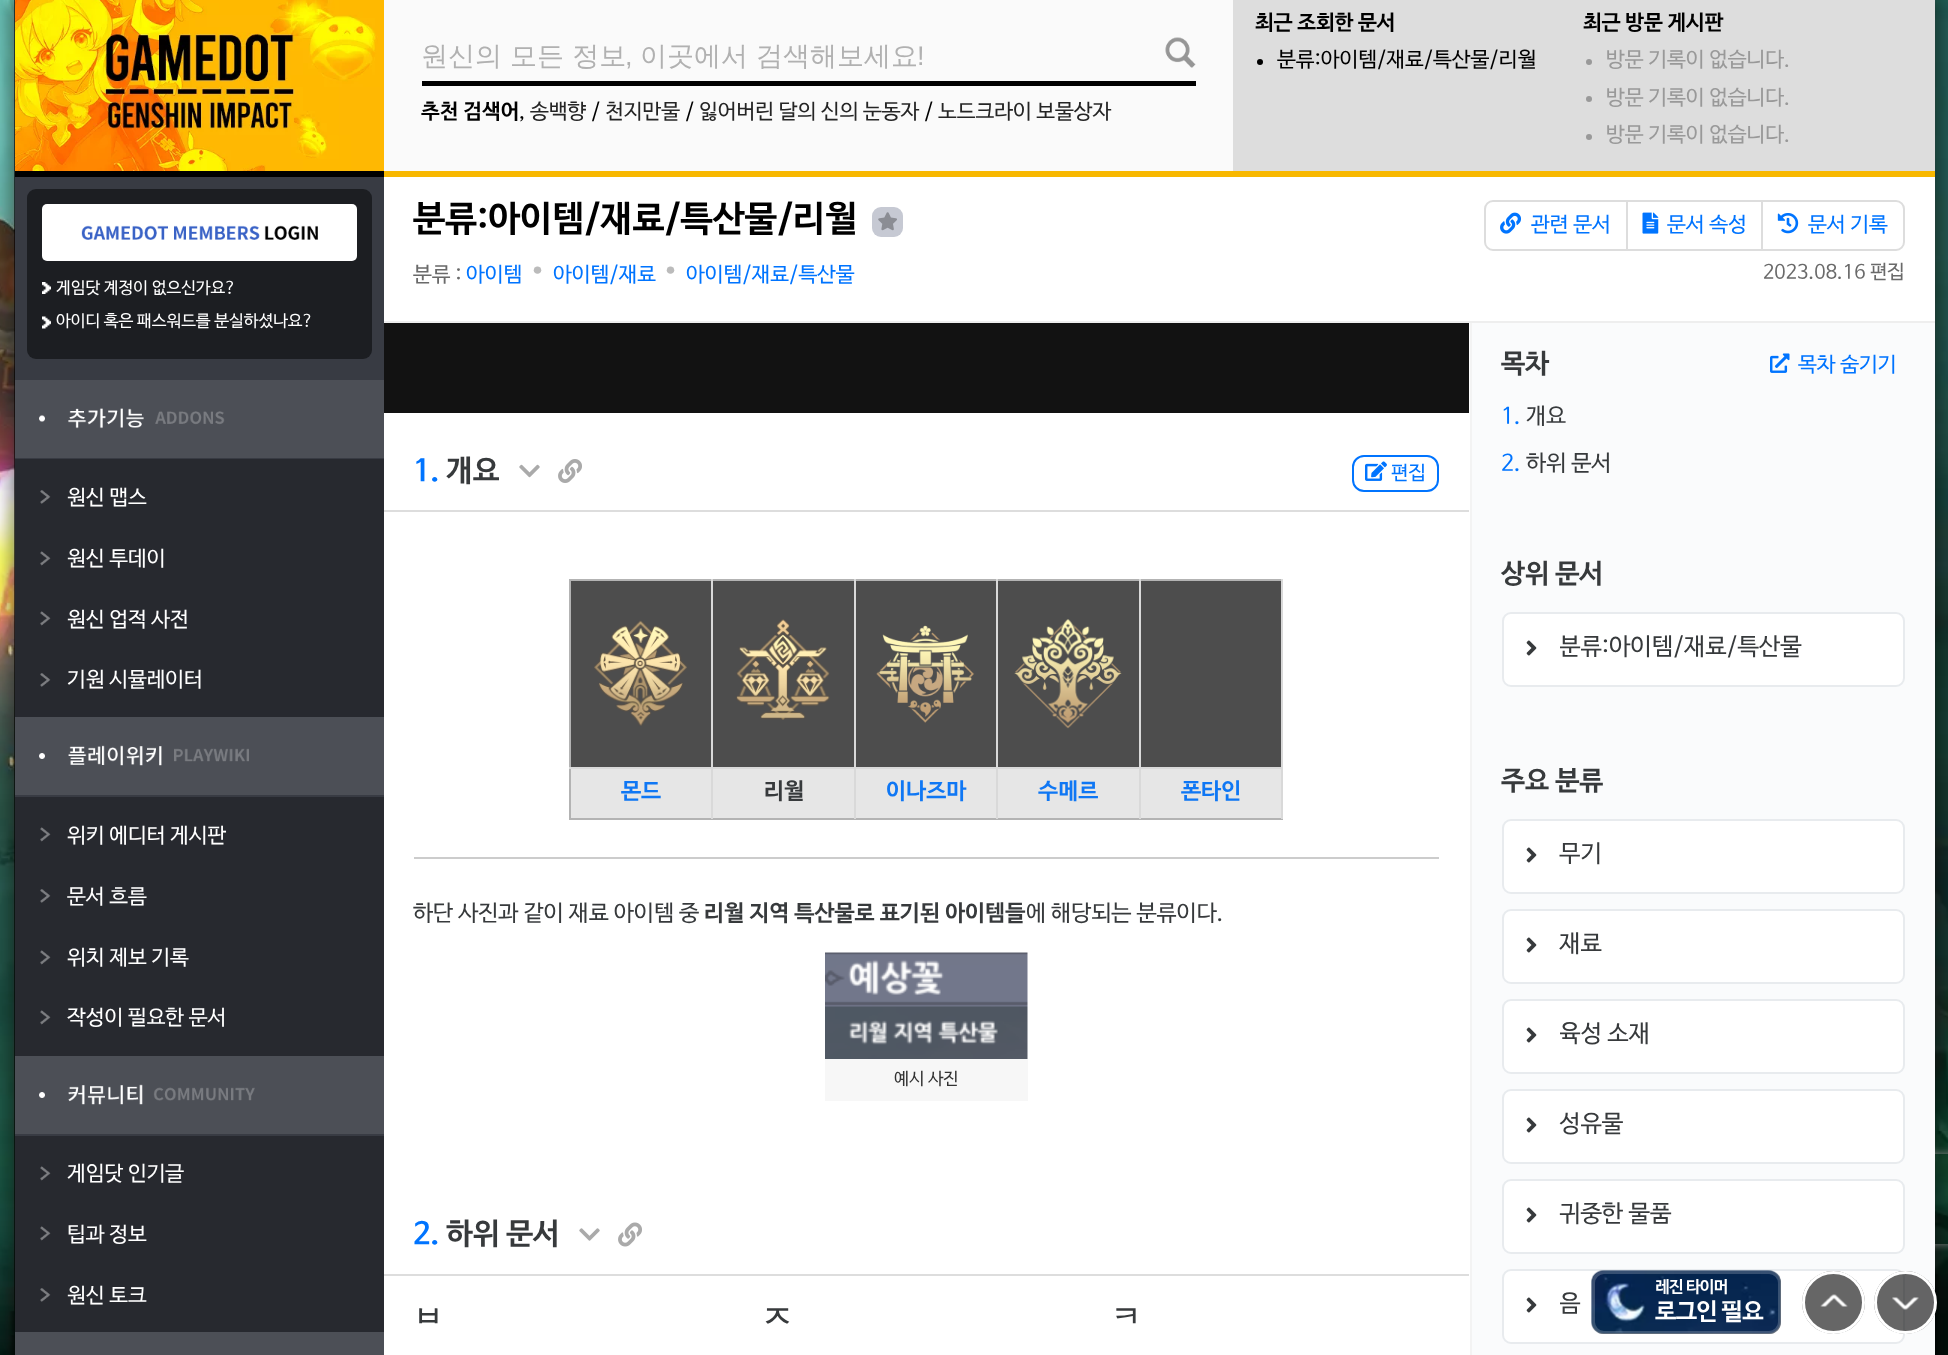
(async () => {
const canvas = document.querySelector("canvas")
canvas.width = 1948
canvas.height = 1355
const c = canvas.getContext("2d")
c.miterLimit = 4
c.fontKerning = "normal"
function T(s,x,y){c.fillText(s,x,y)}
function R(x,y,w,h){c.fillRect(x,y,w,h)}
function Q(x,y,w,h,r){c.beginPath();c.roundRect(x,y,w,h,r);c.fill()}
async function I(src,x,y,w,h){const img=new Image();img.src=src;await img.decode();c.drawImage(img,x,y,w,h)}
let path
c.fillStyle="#fff"
R(0,0,1948,1355)
await I("1.png",0,0,1948,1355)
c.fillStyle="#00000059"
c.filter="blur(7.5px)"
c.beginPath()
c.rect(8,-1,1935,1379)
c.fill()
c.filter="none"
c.fillStyle="#383b43"
R(15,177,369,959)
await I("2.png",15,0,369,171)
c.fillStyle="#000"
R(15,171,5,6)
c.fillStyle="#1c1e22"
Q(27,189,345,170,9)
c.fillStyle="#fff"
Q(42,204,315,57,5)
await I("3.png",81,225,237,15)
await I("4.png",42,282,9,12)
c.font="16.5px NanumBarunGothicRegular"
T("게임닷 계정이 없으신가요?",56,293)
await I("5.png",42,316,9,13)
T("아이디 혹은 패스워드를 분실하셨나요?",56,326)
c.fillStyle="#4c4f56"
R(15,380,369,78)
await I("6.png",39,408,186,21)
c.fillStyle="#27292f"
R(15,459,369,258)
await I("7.png",40,490,11,14)
c.font="21px NanumBarunGothicRegular"
c.fillStyle="#fff"
T("원신 맵스",67,504)
await I("8.png",40,551,11,15)
T("원신 투데이",67,565)
await I("8.png",40,611,11,15)
T("원신 업적 사전",67,626)
await I("7.png",40,673,11,14)
T("기원 시뮬레이터",67,686)
c.fillStyle="#4c4f56"
R(15,717,369,78)
await I("9.png",39,745,210,21)
c.fillStyle="#27292f"
R(15,797,369,259)
await I("8.png",40,827,11,15)
c.fillStyle="#fff"
T("위키 에디터 게시판",67,842)
await I("7.png",40,889,11,14)
T("문서 흐름",67,903)
await I("8.png",40,950,11,15)
T("위치 제보 기록",67,964)
await I("8.png",40,1010,11,15)
T("작성이 필요한 문서",67,1024)
c.fillStyle="#4c4f56"
R(15,1056,369,78)
await I("10.png",39,1084,216,21)
c.fillStyle="#27292f"
R(15,1136,369,196)
await I("8.png",40,1166,11,15)
c.fillStyle="#fff"
T("게임닷 인기글",67,1180)
await I("8.png",40,1226,11,15)
T("팁과 정보",67,1241)
await I("7.png",40,1288,11,14)
T("원신 토크",67,1302)
c.fillStyle="#4c4f56"
R(15,1332,369,23)
c.save()
path = new Path2D("M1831 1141h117v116h-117zm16 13h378c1.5 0 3 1.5 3 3v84c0 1.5-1.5 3-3 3h-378c-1.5 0-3-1.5-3-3v-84c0-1.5 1.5-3 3-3z")
c.clip(path,"evenodd")
c.fillStyle="#808080"
c.filter="blur(4px)"
c.beginPath()
c.roundRect(1844,1154,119,90,3)
c.fill()
c.filter="none"
c.restore()
c.fillStyle="#fff"
R(384,177,1551,1178)
c.fillStyle="#fafafa"
R(384,0,849,171)
c.fillStyle="#f8b800"
R(384,171,1551,6)
await I("11.png",1165,37,31,31)
c.fillStyle="#000"
R(422,81,774,5)
c.font="500 27px WenQuanYi Zen Hei"
c.fillStyle="#b1b1b1"
T("원신의 모든 정보",421,65)
c.font="27px Liberation Sans"
T(",",625,65)
c.font="500 27px WenQuanYi Zen Hei"
T("이곳에서 검색해보세요",640,65)
c.font="27px Liberation Sans"
T("!",917,65)
c.font="bold 21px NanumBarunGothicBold"
c.fillStyle="#000"
T("추천 검색어",421,118)
c.font="21px NanumBarunGothicRegular"
T(",",519,118)
c.fillStyle="#252525"
T("송백향",530,118)
c.fillStyle="#000"
T("/",591,118)
c.fillStyle="#252525"
T("천지만물",605,118)
c.fillStyle="#000"
T("/",685,118)
c.fillStyle="#252525"
T("잃어버린 달의 신의 눈동자",699,118)
c.fillStyle="#000"
T("/",924,118)
c.fillStyle="#252525"
T("노드크라이 보물상자",938,118)
c.fillStyle="#ddd"
R(1233,0,702,171)
c.font="bold 21px NanumBarunGothicBold"
c.fillStyle="#000"
T("최근 조회한 문서",1255,29)
c.beginPath()
c.arc(1260,62,3,0,7)
c.fill()
c.font="21px NanumBarunGothicRegular"
T("분류:아이템/재료/특산물/리월",1277,66)
c.font="bold 21px NanumBarunGothicBold"
T("최근 방문 게시판",1583,29)
c.fillStyle="#999"
c.beginPath()
c.arc(1589,62,3,0,7)
c.fill()
c.font="21px NanumBarunGothicRegular"
T("방문 기록이 없습니다.",1606,66)
c.beginPath()
c.arc(1589,99,3,0,7)
c.fill()
T("방문 기록이 없습니다.",1606,104)
c.beginPath()
c.arc(1589,137,3,0,7)
c.fill()
T("방문 기록이 없습니다.",1606,141)
c.fillStyle="#eee"
R(384,321,1551,2)
c.font="bold 36px NanumBarunGothicBold"
c.fillStyle="#000"
T("분류:아이템/재료/특산물/리월",413,230)
c.fillStyle="#c6c9d3"
Q(872,207,31,30,9)
await I("12.png",878,212,19,19)
c.font="21px NanumBarunGothicRegular"
c.fillStyle="#6a6a6a"
T("분류 :",413,281)
c.fillStyle="#0074ff"
T("아이템",466,281)
c.font="63px Liberation Serif"
c.fillStyle="#bbb"
T("·",527,291)
c.font="21px NanumBarunGothicRegular"
c.fillStyle="#0074ff"
T("아이템/재료",553,281)
c.font="63px Liberation Serif"
c.fillStyle="#bbb"
T("·",660,291)
c.font="21px NanumBarunGothicRegular"
c.fillStyle="#0074ff"
T("아이템/재료/특산물",686,281)
c.beginPath()
c.roundRect(1485,201,419,49,8)
c.strokeStyle="#ddd"
c.lineWidth=2
c.stroke()
c.fillStyle="#ddd"
R(1626,201,2,48)
await I("13.png",1500,212,21,22)
c.fillStyle="#0074ff"
T("관련 문서",1531,231)
c.fillStyle="#ddd"
R(1761,201,2,48)
await I("14.png",1642,212,17,22)
c.fillStyle="#0074ff"
T("문서 속성",1667,231)
await I("15.png",1777,213,22,21)
T("문서 기록",1808,231)
c.font="19.5px NanumBarunGothicRegular"
c.fillStyle="#6a6a6a"
T("2023.08.16 편집",1763,278)
c.fillStyle="#121212"
R(384,323,1085,90)
c.fillStyle="#ddd"
R(384,510,1085,2)
c.font="bold 30px NanumBarunGothicBold"
c.fillStyle="#0074ff"
T("1.",413,480)
c.fillStyle="#373a3c"
T("개요",446,480)
await I("16.png",519,464,21,14)
await I("17.png",558,459,24,24)
c.beginPath()
c.roundRect(1353,456,85,35,11)
c.strokeStyle="#0074ff"
c.stroke()
await I("18.png",1365,461,22,20)
c.font="19.5px NanumBarunGothicRegular"
c.fillStyle="#0074ff"
T("편집",1391,479)
c.fillStyle="#b3b3b3"
R(569,579,714,2)
R(569,818,714,2)
R(569,579,2,240)
c.fillStyle="#4d4d4d"
R(571,581,140,186)
c.fillStyle="#d9d9d9"
R(1139,767,2,52)
R(1281,579,2,240)
R(1139,767,144,2)
R(1139,579,2,189)
R(996,767,2,52)
R(996,767,144,2)
R(996,579,2,189)
R(854,767,2,52)
R(854,767,144,2)
R(854,579,2,189)
R(711,767,2,52)
R(711,767,144,2)
R(711,579,2,189)
R(569,767,144,2)
await I("19.png",594,620,93,106)
c.fillStyle="#4d4d4d"
R(713,581,141,186)
await I("20.png",736,619,94,101)
R(856,581,140,186)
await I("21.png",876,625,99,98)
R(998,581,141,186)
await I("22.png",1014,619,108,110)
R(1141,581,140,186)
c.fillStyle="#e6e6e6"
R(571,769,140,49)
c.font="bold 22.5px NanumBarunGothicBold"
c.fillStyle="#0f77f4"
T("몬드",621,798)
c.fillStyle="#e6e6e6"
R(713,769,141,49)
c.fillStyle="#373a3c"
T("리월",764,798)
c.fillStyle="#e6e6e6"
R(856,769,140,49)
c.fillStyle="#0f77f4"
T("이나즈마",886,798)
c.fillStyle="#e6e6e6"
R(998,769,141,49)
c.fillStyle="#0f77f4"
T("수메르",1038,798)
c.fillStyle="#e6e6e6"
R(1141,769,140,49)
c.fillStyle="#0f77f4"
T("폰타인",1181,798)
c.fillStyle="#ccc"
R(414,857,1025,2)
c.font="22.5px NanumBarunGothicRegular"
c.fillStyle="#373a3c"
T("하단 사진과 같이 재료 아이템 중",413,920)
c.font="bold 22.5px NanumBarunGothicBold"
T("리월 지역 특산물로 표기된 아이템들",704,920)
c.font="22.5px NanumBarunGothicRegular"
T("에 해당되는 분류이다.",1026,920)
await I("23.png",825,952,203,107)
c.fillStyle="#f7f7f7"
R(825,1059,203,42)
c.font="17px NanumBarunGothicRegular"
c.fillStyle="#333"
T("예시 사진",894,1084)
c.fillStyle="#ddd"
R(384,1274,1085,2)
c.font="bold 30px NanumBarunGothicBold"
c.fillStyle="#0074ff"
T("2.",413,1243)
c.fillStyle="#373a3c"
T("하위 문서",446,1243)
await I("24.png",579,1228,21,13)
await I("25.png",618,1222,24,25)
c.font="bold 30px WenQuanYi Zen Hei"
T("ㅂ",413,1327)
T("ㅈ",762,1327)
T("ㅋ",1111,1327)
c.fillStyle="#fafbfc"
R(1472,323,463,1032)
c.fillStyle="#f3f3f3"
R(1470,323,2,1032)
c.font="bold 27px NanumBarunGothicBold"
c.fillStyle="#373a3c"
T("목차",1501,372)
c.font="22.5px NanumBarunGothicRegular"
c.fillStyle="#0074ff"
T("1.",1501,423)
c.fillStyle="#373a3c"
T("개요",1526,423)
c.fillStyle="#0074ff"
T("2.",1501,470)
c.fillStyle="#373a3c"
T("하위 문서",1526,470)
await I("26.png",1770,353,20,20)
c.font="21px NanumBarunGothicRegular"
c.fillStyle="#0074ff"
T("목차 숨기기",1798,371)
c.font="bold 27px NanumBarunGothicBold"
c.fillStyle="#373a3c"
T("상위 문서",1501,582)
c.fillStyle="#fff"
c.beginPath()
c.roundRect(1503,613,401,73,8)
c.fill()
c.strokeStyle="#e8ebee"
c.stroke()
await I("27.png",1526,640,11,16)
c.save()
c.beginPath()
c.rect(1560,614,320,69)
c.clip()
c.font="24px NanumBarunGothicRegular"
c.fillStyle="#373a3c"
T("분류:아이템/재료/특산물",1559,654)
c.restore()
c.fillStyle="#373a3c"
T("주요 분류",1501,789)
c.fillStyle="#fff"
c.beginPath()
c.roundRect(1503,820,401,73,8)
c.fill()
c.stroke()
await I("27.png",1526,847,11,16)
c.font="24px NanumBarunGothicRegular"
c.fillStyle="#373a3c"
T("무기",1559,861)
c.fillStyle="#fff"
c.beginPath()
c.roundRect(1503,910,401,73,8)
c.fill()
c.stroke()
await I("27.png",1526,937,11,16)
c.fillStyle="#373a3c"
T("재료",1559,951)
c.fillStyle="#fff"
c.beginPath()
c.roundRect(1503,1000,401,73,8)
c.fill()
c.stroke()
await I("27.png",1526,1027,11,16)
c.save()
c.beginPath()
c.rect(1560,1001,320,69)
c.clip()
c.fillStyle="#373a3c"
T("육성 소재",1559,1041)
c.restore()
c.beginPath()
c.roundRect(1503,1090,401,73,8)
c.fill()
c.stroke()
await I("27.png",1526,1117,11,16)
c.fillStyle="#373a3c"
T("성유물",1559,1131)
c.fillStyle="#fff"
c.beginPath()
c.roundRect(1503,1180,401,73,8)
c.fill()
c.stroke()
await I("27.png",1526,1207,11,16)
c.fillStyle="#373a3c"
T("귀중한 물품",1559,1221)
c.fillStyle="#fff"
c.beginPath()
c.roundRect(1503,1270,401,73,8)
c.fill()
c.stroke()
await I("27.png",1526,1297,11,16)
c.save()
c.beginPath()
c.rect(1560,1271,320,69)
c.clip()
c.fillStyle="#373a3c"
T("음",1559,1311)
c.restore()
c.fillStyle="#00000099"
Q(1592,1271,189,63,12)
await I("28.png",1591,1270,190,64)
c.beginPath()
c.roundRect(1593.5,1272.5,186,60,10.5)
c.strokeStyle="#ffffff33"
c.lineWidth=3
c.stroke()
c.letterSpacing="-0.75px"
c.font="bold 16.5px NanumBarunGothicBold"
c.fillStyle="#fff"
T("레진 타이머",1655,1292)
c.font="bold 24px NanumBarunGothicBold"
T("로그인 필요",1655,1319)
c.fillStyle="#666"
c.beginPath()
c.arc(1833.5,1302.5,31.5,0,7)
c.fill()
await I("29.png",1820,1294,28,13)
c.beginPath()
c.arc(1833.5,1302.5,30,0,7)
c.strokeStyle="#fff"
c.stroke()
c.fillStyle="#00000099"
c.beginPath()
c.arc(1905.5,1302.5,31.5,0,7)
c.fill()
await I("30.png",1892,1297,27,13)
c.beginPath()
c.arc(1905.5,1302.5,30,0,7)
c.stroke()
})()
